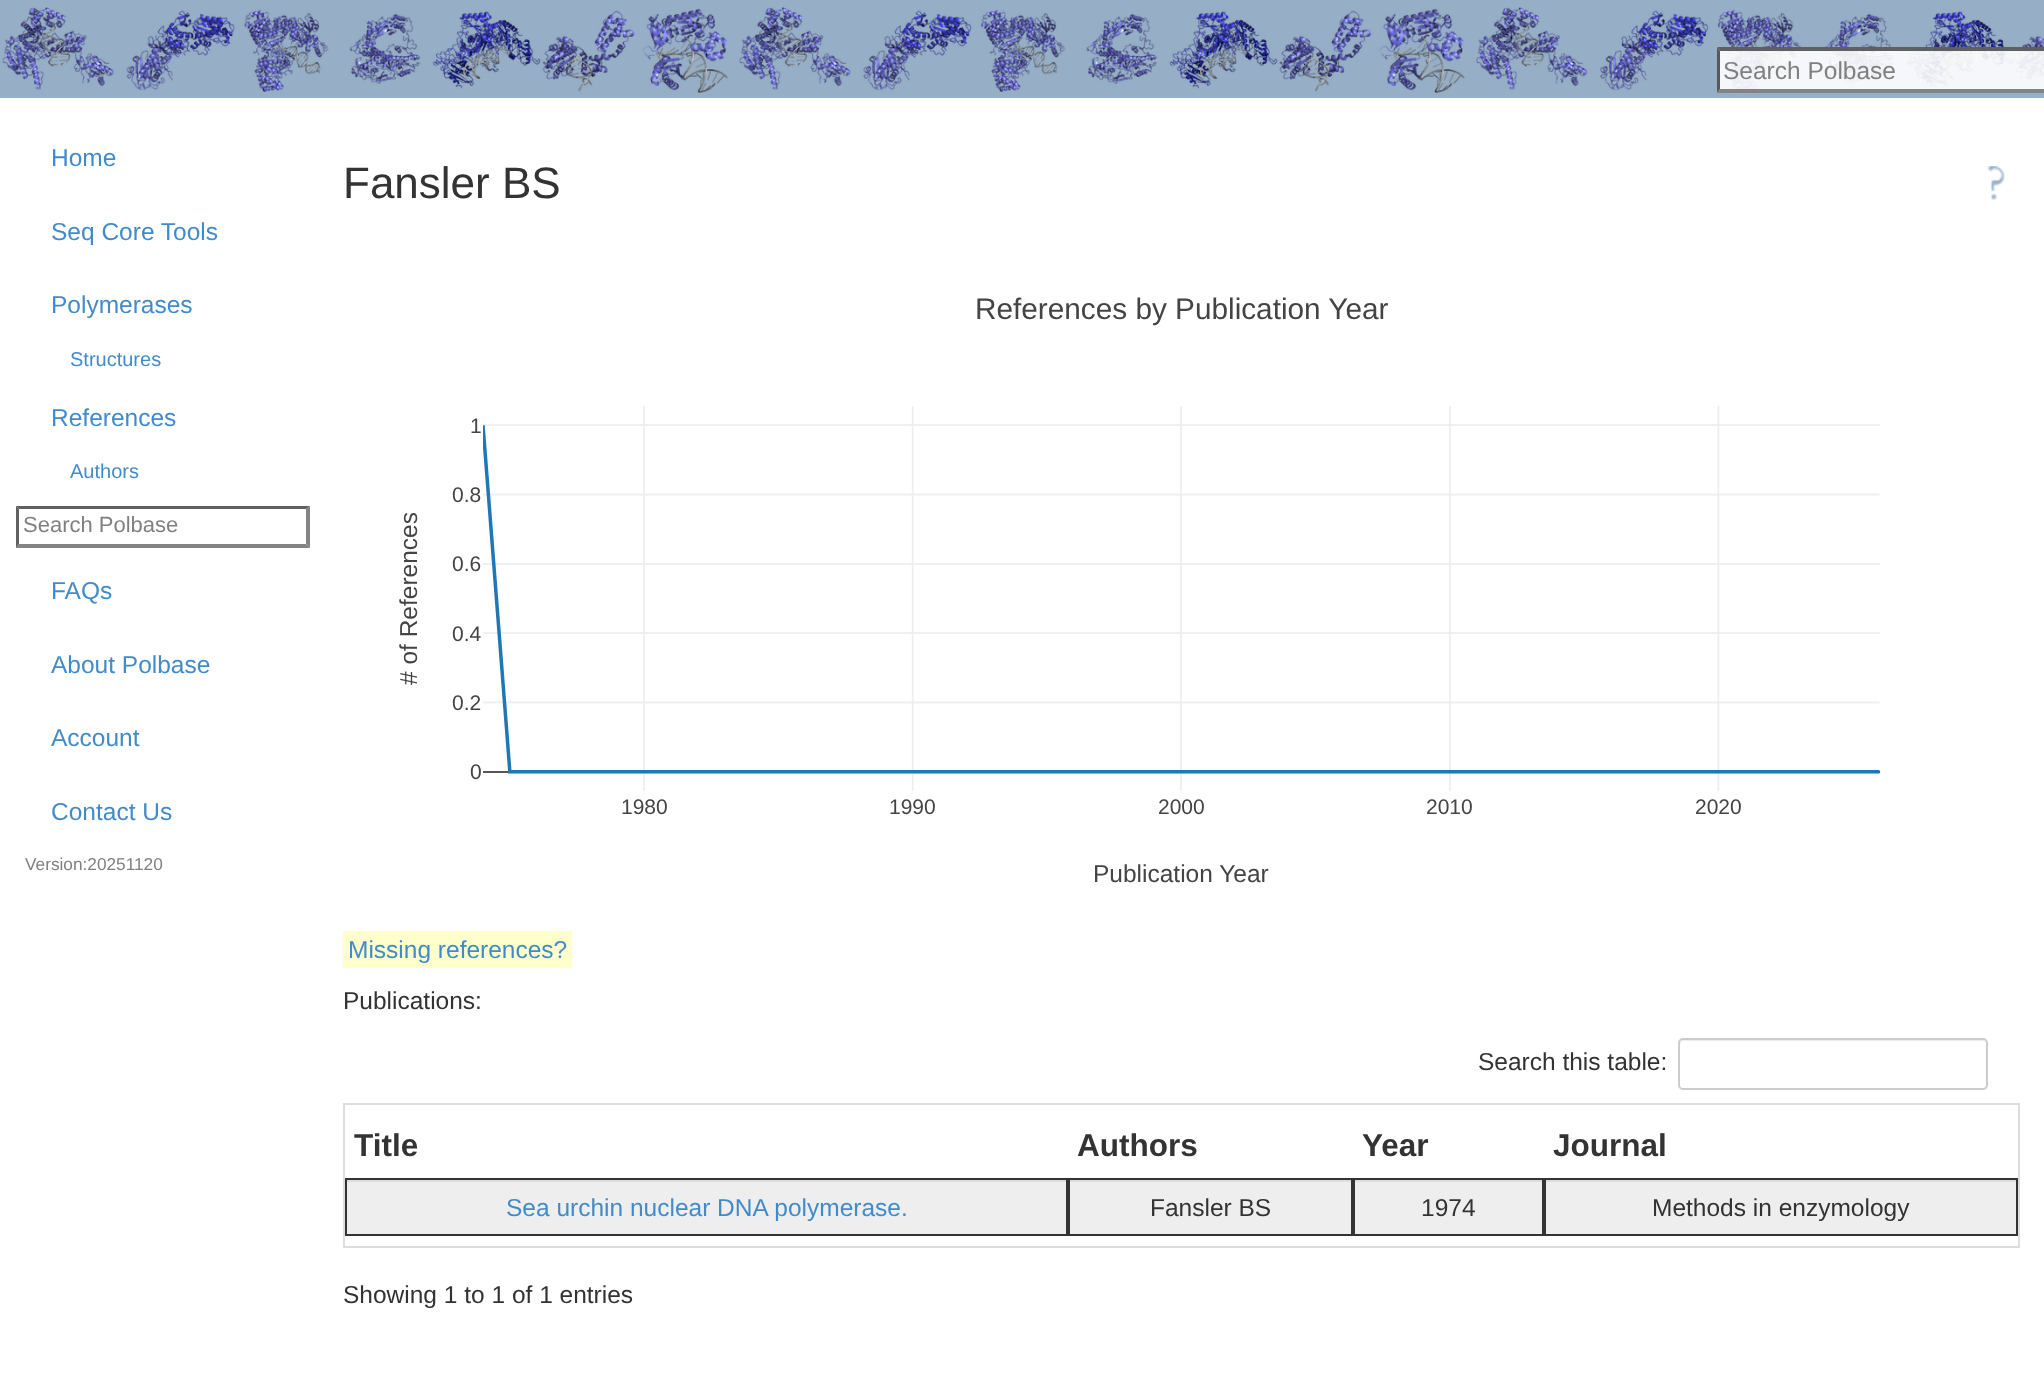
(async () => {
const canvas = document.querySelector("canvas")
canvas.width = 2044
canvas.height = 1398
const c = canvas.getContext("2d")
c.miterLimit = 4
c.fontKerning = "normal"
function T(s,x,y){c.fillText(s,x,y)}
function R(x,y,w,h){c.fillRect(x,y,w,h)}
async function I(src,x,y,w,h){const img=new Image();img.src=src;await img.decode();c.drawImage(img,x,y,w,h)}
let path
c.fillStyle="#fff"
R(0,0,2044,1398)
c.fillStyle="#96aec6"
R(0,0,2044,98)
await I("1.png",2,7,2042,86)
c.fillStyle="#ffffffe6"
R(1717,47,327,46)
c.fillStyle="#4f4f4fe6"
path = new Path2D("M1717 47h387l-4 4h-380z")
c.fill(path)
c.fillStyle="#767676e6"
path = new Path2D("M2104 93h-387l3-4h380z")
c.fill(path)
c.fillStyle="#56595b"
path = new Path2D("M1717 93v-46l3 4v38z")
c.fill(path)
c.font="24.5px Liberation Sans"
c.fillStyle="#808080"
T("Search Polbase",1723,79)
c.fillStyle="#428bca"
T("Home",51,166)
T("Seq Core Tools",51,240)
T("Polymerases",51,313)
c.font="20px Liberation Sans"
T("Structures",70,366)
c.font="24.5px Liberation Sans"
T("References",51,426)
c.font="20px Liberation Sans"
T("Authors",70,478)
c.fillStyle="#616161"
path = new Path2D("M16 506h294l-4 3h-287z")
c.fill(path)
c.fillStyle="#848484"
path = new Path2D("M310 506v42l-4-4v-35z")
c.fill(path)
path = new Path2D("M310 548h-294l3-4h287z")
c.fill(path)
c.fillStyle="#616161"
path = new Path2D("M16 548v-42l3 3v35z")
c.fill(path)
c.font="22px Liberation Sans"
c.fillStyle="#808080"
T("Search Polbase",23,532)
c.font="24.5px Liberation Sans"
c.fillStyle="#428bca"
T("FAQs",51,599)
T("About Polbase",51,673)
T("Account",51,746)
T("Contact Us",51,820)
c.font="17.25px Liberation Sans"
c.fillStyle="#808080"
T("Version:20251120",25,870)
c.font="44px Liberation Sans"
c.fillStyle="#333"
T("Fansler BS",343,198)
await I("2.png",1987,166,18,34)
c.font="29.75px Liberation Sans"
c.fillStyle="#444"
T("References by Publication Year",975,319)
c.font="24.5px Liberation Sans"
c.save()
c.translate(417,685)
c.rotate(-90 * Math.PI / 180)
c.fillText("# of References",0,0)
c.restore()
T("Publication Year",1093,882)
await I("3.png",483,406,1397,385)
c.font="21px Liberation Sans"
T("1",470,433)
T("0.8",452,502)
T("0.6",452,571)
T("0.4",452,641)
T("0.2",452,710)
T("0",470,779)
T("1980",621,814)
T("1990",889,814)
T("2000",1158,814)
T("2010",1426,814)
T("2020",1695,814)
c.fillStyle="#ffc"
R(343,931,229,37)
c.font="24.5px Liberation Sans"
c.fillStyle="#428bca"
T("Missing references?",348,958)
c.fillStyle="#333"
T("Publications:",343,1009)
T("Search this table:",1478,1070)
c.fillStyle="#ececec"
path = new Path2D("M1684 1041h299c2 0 3 2 3 4c0-3-1-5-4-5h-298l-3 1c-1 1-1 3-1 4c0-2 2-4 4-4z")
c.fill(path)
c.beginPath()
c.roundRect(1679,1039,308,50,4)
c.strokeStyle="#ccc"
c.lineWidth=2
c.stroke()
c.strokeStyle="#ddd"
c.strokeRect(344,1104,1675,143)
c.fillStyle="#333"
R(345,1178,1673,2)
c.font="bold 31.5px Liberation Sans"
T("Title",354,1156)
T("Authors",1077,1156)
T("Year",1362,1156)
T("Journal",1553,1156)
c.fillStyle="#eee"
R(347,1182,1669,52)
c.fillStyle="#ddd"
R(345,1180,1673,2)
c.fillStyle="#333"
R(1066,1180,2,56)
R(345,1234,723,2)
R(345,1180,2,56)
c.font="24.5px Liberation Sans"
c.fillStyle="#428bca"
T("Sea urchin nuclear DNA polymerase.",506,1216)
c.fillStyle="#333"
R(1351,1180,2,56)
R(1068,1234,285,2)
R(1068,1180,2,56)
T("Fansler BS",1150,1216)
R(1542,1180,2,56)
R(1353,1234,191,2)
R(1353,1180,2,56)
T("1974",1421,1216)
R(2016,1180,2,56)
R(1544,1234,474,2)
R(1544,1180,2,56)
T("Methods in enzymology",1652,1216)
T("Showing 1 to 1 of 1 entries",343,1303)
})()
